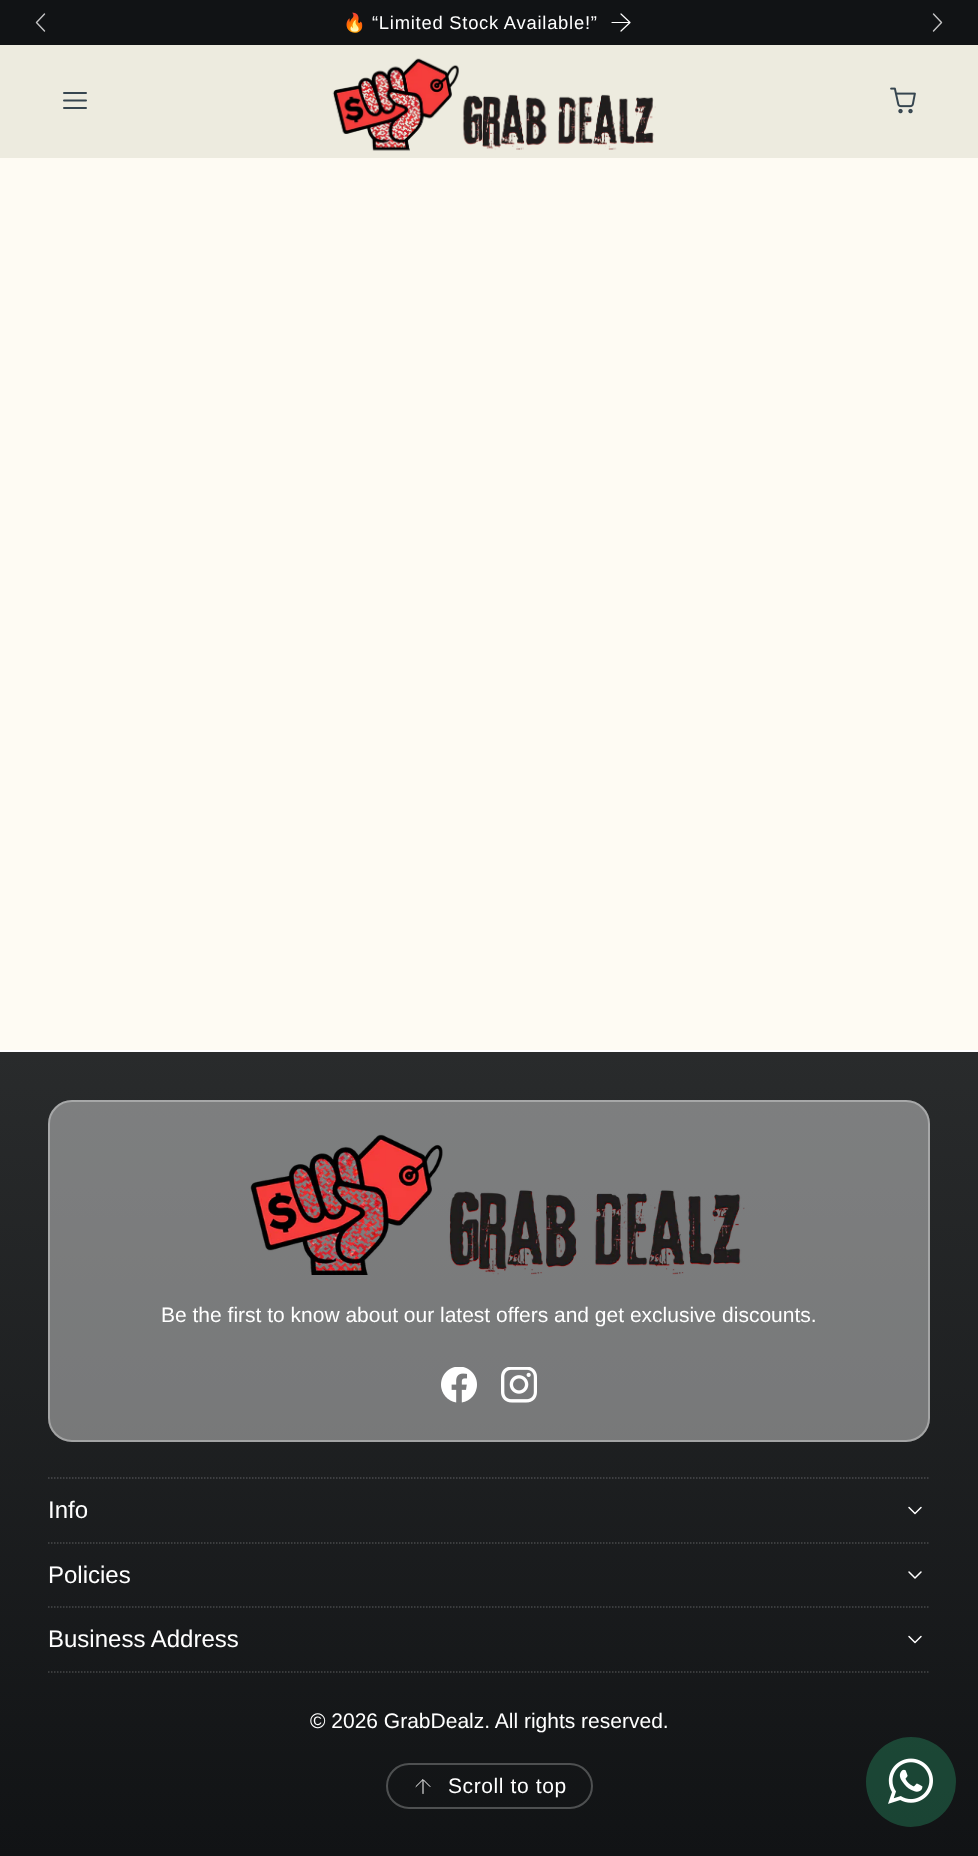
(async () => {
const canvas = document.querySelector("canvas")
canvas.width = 978
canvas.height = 1856
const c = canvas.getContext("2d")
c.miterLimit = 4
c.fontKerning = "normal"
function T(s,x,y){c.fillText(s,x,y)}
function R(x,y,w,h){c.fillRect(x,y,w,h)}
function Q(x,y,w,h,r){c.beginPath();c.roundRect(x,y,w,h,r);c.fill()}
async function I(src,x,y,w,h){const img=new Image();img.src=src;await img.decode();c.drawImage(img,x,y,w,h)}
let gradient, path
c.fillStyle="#fefbf3"
R(0,0,978,1856)
c.fillStyle="#111315"
R(0,0,978,45)
path = new Path2D("M44.5 31l-8-8.5l8-8.5")
c.strokeStyle="#c4c4c5"
c.lineWidth=1.4
c.lineCap="round"
c.lineJoin="round"
c.stroke(path)
c.letterSpacing="0.75px"
c.font="18.4px Noto Color Emoji"
c.fillStyle="#fff"
T("🔥",343,29)
c.font="18.4px Liberation Sans"
T("“Limited Stock Available!”",372,29)
path = new Path2D("M612 22.5h16.5m-7.5-8.5l9 8.5l-9 8.5")
c.strokeStyle="#fff"
c.lineWidth=1.2
c.stroke(path)
path = new Path2D("M933.5 31l8-8.5l-8-8.5")
c.strokeStyle="#c4c4c5"
c.lineWidth=1.4
c.stroke(path)
c.fillStyle="#edebdf"
R(0,45,978,113)
path = new Path2D("M64 100.5h22m-22-7.5h22m-22 15h22")
c.strokeStyle="#36454f"
c.lineWidth=2
c.stroke(path)
await I("1.png",332,58,324,93)
await I("2.png",890,87,26,27)
gradient = c.createLinearGradient(489,1052,489,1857)
gradient.addColorStop(0,"#292b2c")
gradient.addColorStop(1,"#111315")
c.fillStyle = gradient
R(0,1052,978,804)
c.fillStyle="#fff"
R(0,1050,978,2)
c.fillStyle="#ffffff66"
Q(48,1100,882,342,24)
c.beginPath()
c.roundRect(49,1101,880,340,23)
c.strokeStyle="#ffffff52"
c.lineJoin="miter"
c.stroke()
await I("3.png",250,1134,495,141)
c.letterSpacing="0px"
c.font="21px Liberation Sans"
c.fillStyle="#fff"
T("Be the first to know about our latest offers and get exclusive discounts.",161,1322)
await I("4.png",441,1367,36,36)
await I("5.png",501,1367,36,36)
path = new Path2D("M48 1478h882")
c.strokeStyle="#494b4d"
c.lineWidth=1.5
c.lineCap="butt"
c.setLineDash([1.5,1.5])
c.stroke(path)
path = new Path2D("M48 1543h882")
c.strokeStyle="#48494b"
c.stroke(path)
c.font="24px Liberation Sans"
T("Info",48,1518)
path = new Path2D("M909 1507.5l6 6l6-6")
c.strokeStyle="#fff"
c.lineCap="round"
c.lineJoin="round"
c.setLineDash([])
c.stroke(path)
path = new Path2D("M48 1607h882")
c.strokeStyle="#464849"
c.lineCap="butt"
c.lineJoin="miter"
c.setLineDash([1.5,1.5])
c.stroke(path)
T("Policies",48,1583)
path = new Path2D("M909 1572l6 6l6-6")
c.strokeStyle="#fff"
c.lineCap="round"
c.lineJoin="round"
c.setLineDash([])
c.stroke(path)
path = new Path2D("M48 1672h882")
c.strokeStyle="#454748"
c.lineCap="butt"
c.lineJoin="miter"
c.setLineDash([1.5,1.5])
c.stroke(path)
T("Business Address",48,1647)
path = new Path2D("M909 1636.5l6 6l6-6")
c.strokeStyle="#fff"
c.lineCap="round"
c.lineJoin="round"
c.setLineDash([])
c.stroke(path)
c.font="21px Liberation Sans"
T("© 2026 GrabDealz. All rights reserved.",310,1728)
c.beginPath()
c.roundRect(387,1764,205,44,22)
c.strokeStyle="#4e5051"
c.lineWidth=2
c.lineJoin="miter"
c.stroke()
path = new Path2D("M423 1793.5v-13m-7 6l7-7l7 7")
c.strokeStyle="#fff"
c.lineWidth=1
c.lineJoin="round"
c.stroke(path)
c.letterSpacing="0.6px"
T("Scroll to top",448,1793)
c.fillStyle="#2db67c4d"
c.beginPath()
c.arc(911,1782,45,0,7)
c.fill()
await I("6.png",888,1758,45,46)
})()
